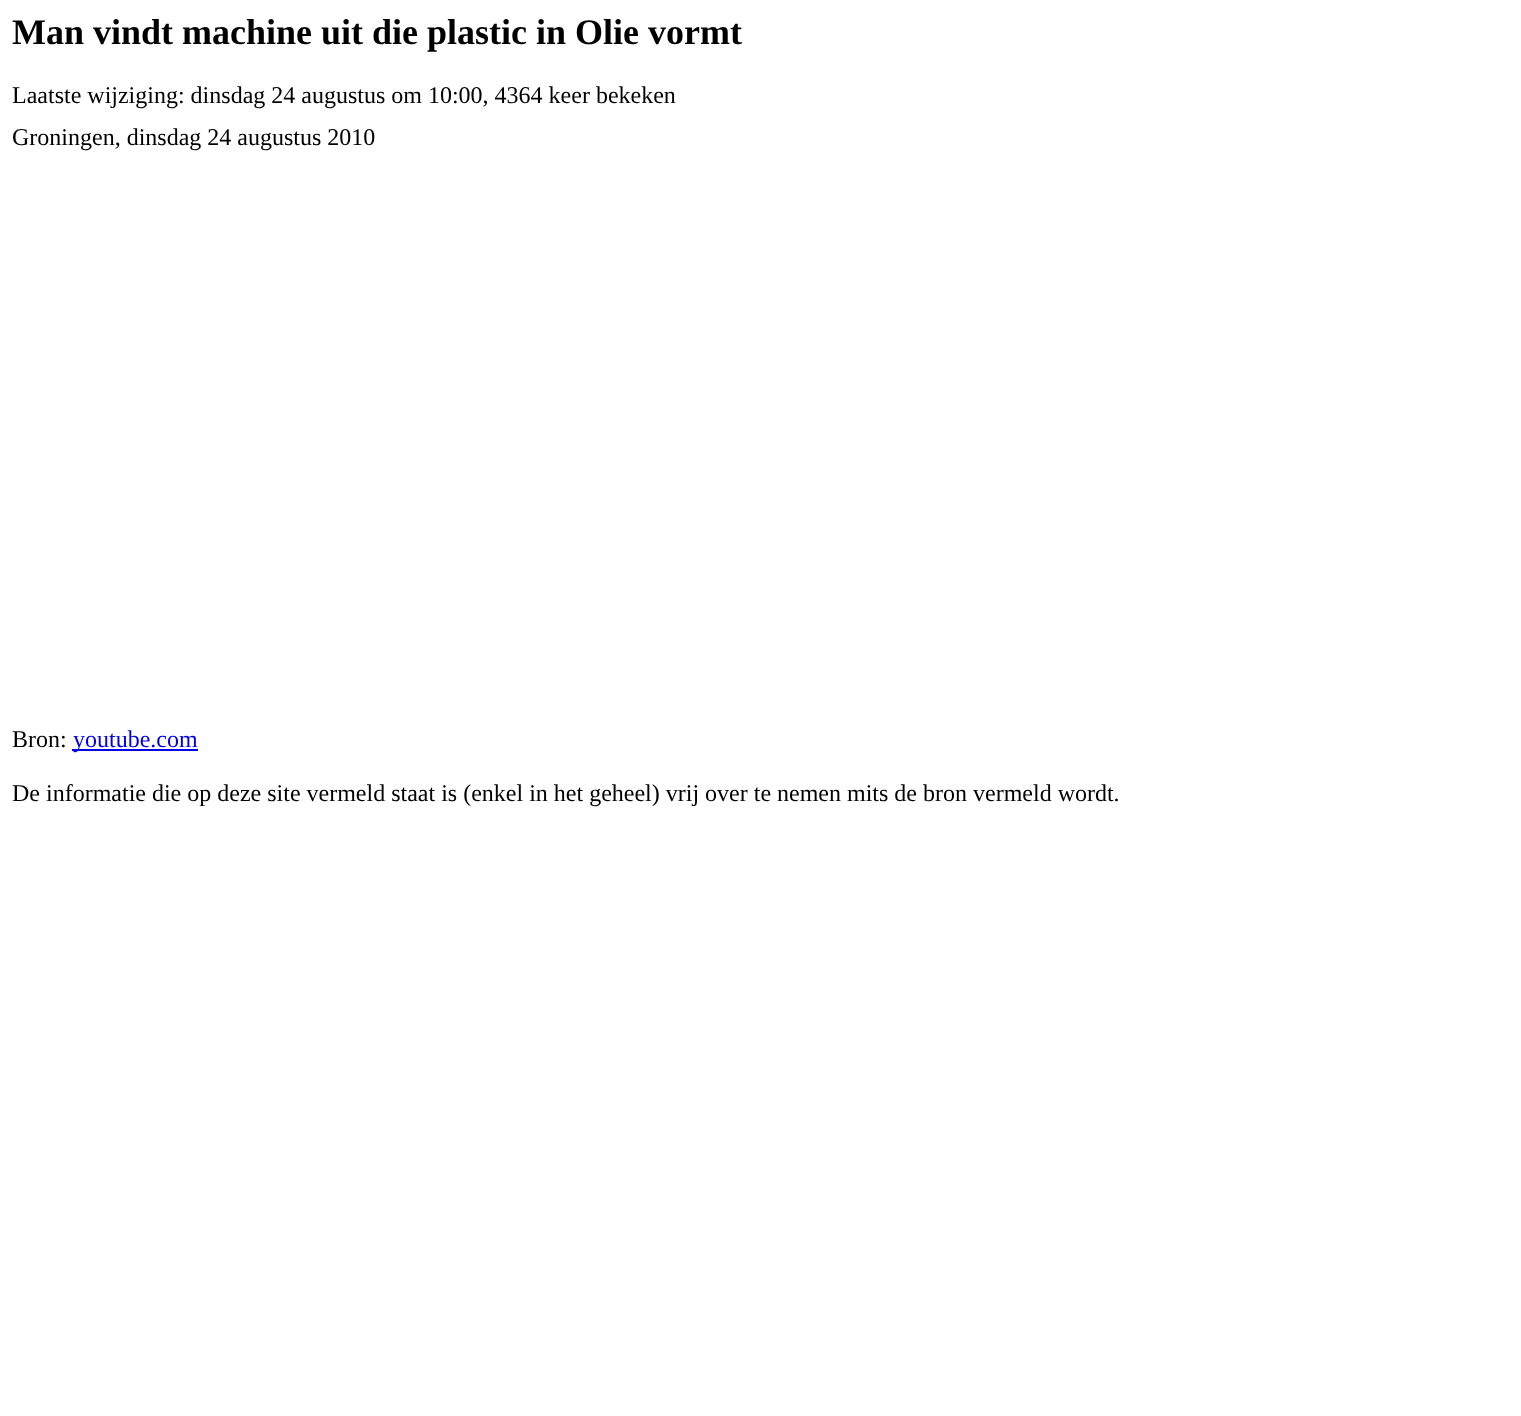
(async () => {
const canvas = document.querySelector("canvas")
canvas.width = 1521
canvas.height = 1416
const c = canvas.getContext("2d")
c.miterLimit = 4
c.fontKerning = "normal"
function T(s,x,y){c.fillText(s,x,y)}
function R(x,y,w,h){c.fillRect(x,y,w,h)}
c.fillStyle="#fff"
R(0,0,1521,1416)
c.font="bold 36px Liberation Serif"
c.fillStyle="#000"
T("Man vindt machine uit die plastic in Olie vormt",12,44)
c.font="24px Liberation Serif"
T("Laatste wijziging: dinsdag 24 augustus om 10:00, 4364 keer bekeken",12,103)
T("Groningen, dinsdag 24 augustus 2010",12,145)
T("Bron:",12,747)
c.fillStyle="#00e"
R(72,749,126,2)
T("youtube.com",73,747)
c.fillStyle="#000"
T("De informatie die op deze site vermeld staat is (enkel in het geheel) vrij over te nemen mits de bron vermeld wordt.",12,801)
})()
